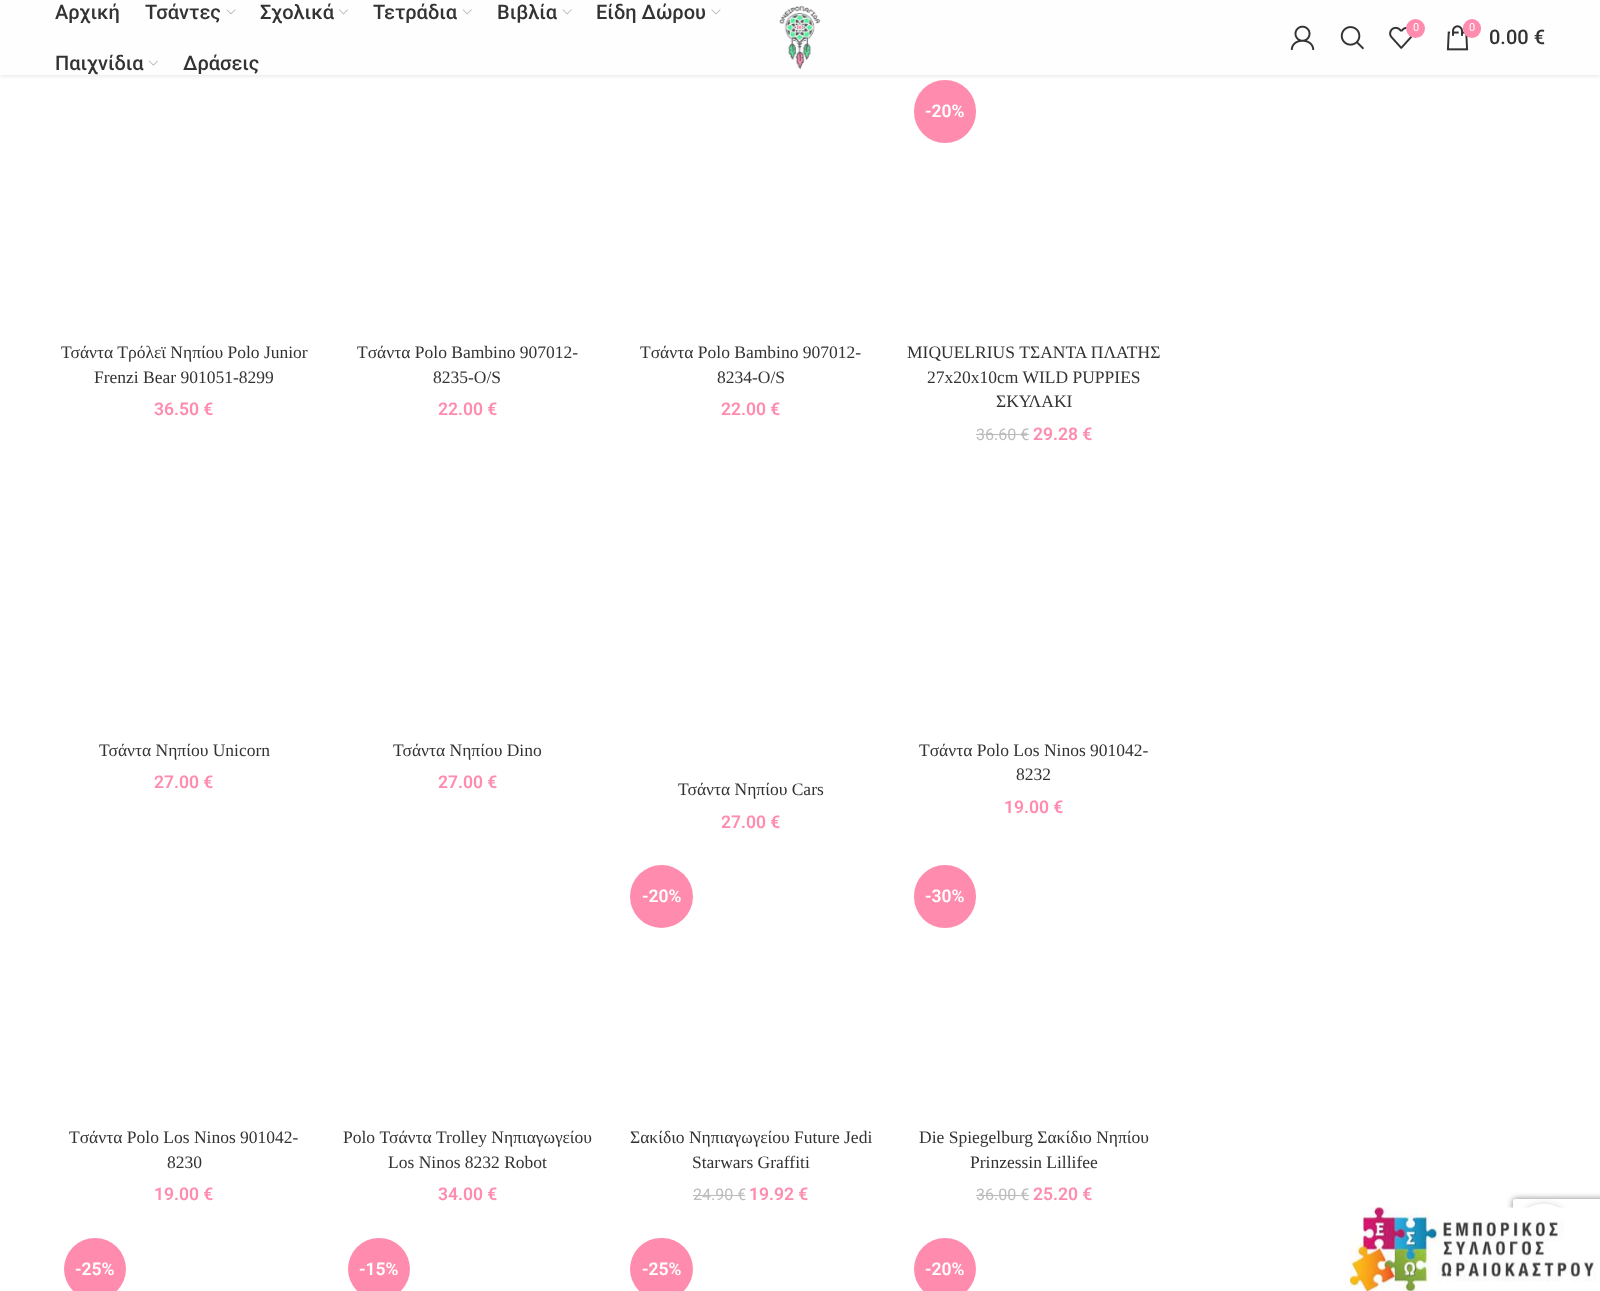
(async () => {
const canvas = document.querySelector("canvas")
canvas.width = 1600
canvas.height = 1291
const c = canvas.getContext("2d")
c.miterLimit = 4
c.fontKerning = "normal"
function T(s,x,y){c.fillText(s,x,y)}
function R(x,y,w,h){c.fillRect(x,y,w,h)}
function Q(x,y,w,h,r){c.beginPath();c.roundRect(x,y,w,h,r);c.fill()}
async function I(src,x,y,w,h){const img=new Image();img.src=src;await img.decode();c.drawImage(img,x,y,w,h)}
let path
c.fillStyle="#fff"
R(0,0,1600,1291)
c.fillStyle="#ff8caf"
Q(914,80,62,63,31)
c.fillStyle="#0000001a"
c.filter="blur(2px)"
c.beginPath()
c.rect(0,1,1600,75)
c.fill()
c.filter="none"
c.fillStyle="#fefefe"
R(0,0,1600,75)
c.font="500 20px Roboto"
c.fillStyle="#333"
T("Αρχική",55,19)
T("Τσάντες",145,19)
await I("1.png",226,9,10,6)
T("Σχολικά",260,19)
await I("2.png",339,9,9,6)
T("Τετράδια",373,19)
await I("3.png",462,9,10,6)
T("Βιβλία",497,19)
await I("3.png",562,9,10,6)
T("Είδη Δώρου",596,19)
await I("1.png",711,9,10,6)
T("Παιχνίδια",55,70)
await I("4.png",149,60,9,6)
T("Δράσεις",183,70)
await I("5.png",779,6,42,63)
await I("6.png",1290,25,25,25)
await I("7.png",1340,26,24,24)
await I("8.png",1389,26,24,23)
c.fillStyle="#ff8caf"
c.beginPath()
c.arc(1415.5,28.5,9.5,0,7)
c.fill()
c.font="11px Roboto"
c.fillStyle="#fff"
T("0",1413,31)
await I("9.png",1446,25,23,26)
c.fillStyle="#ff8caf"
Q(1463,19,18,19,9)
c.fillStyle="#fff"
T("0",1469,31)
c.font="500 20px Roboto"
c.fillStyle="#333"
T("0.00 €",1489,44)
c.font="17.5px Liberation Serif"
T("Τσάντα Τρόλεϊ Νηπίου Polo Junior",61,358)
T("Frenzi Bear 901051-8299",94,383)
c.font="600 17.5px Roboto"
c.fillStyle="#ff8caf"
T("36.50 €",154,415)
c.font="17.5px Liberation Serif"
c.fillStyle="#333"
T("Tσάντα Polo Bambino 907012-",357,358)
T("8235-O/S",433,383)
c.font="600 17.5px Roboto"
c.fillStyle="#ff8caf"
T("22.00 €",438,415)
c.font="17.5px Liberation Serif"
c.fillStyle="#333"
T("Tσάντα Polo Bambino 907012-",640,358)
T("8234-O/S",717,383)
c.font="600 17.5px Roboto"
c.fillStyle="#ff8caf"
T("22.00 €",721,415)
c.fillStyle="#fff"
T("-20%",925,117)
c.font="17.5px Liberation Serif"
c.fillStyle="#333"
T("MIQUELRIUS ΤΣΑΝΤΑ ΠΛΑΤΗΣ",907,358)
T("27x20x10cm WILD PUPPIES",927,383)
T("ΣΚΥΛΑΚΙ",996,407)
c.font="16px Roboto"
c.fillStyle="#bbb"
T("36.60 €",976,440)
R(976,434,53,1)
c.font="600 17.5px Roboto"
c.fillStyle="#ff8caf"
T("29.28 €",1033,440)
c.font="17.5px Liberation Serif"
c.fillStyle="#333"
T("Τσάντα Νηπίου Unicorn",99,756)
c.font="600 17.5px Roboto"
c.fillStyle="#ff8caf"
T("27.00 €",154,788)
c.font="17.5px Liberation Serif"
c.fillStyle="#333"
T("Τσάντα Νηπίου Dino",393,756)
c.font="600 17.5px Roboto"
c.fillStyle="#ff8caf"
T("27.00 €",438,788)
c.font="17.5px Liberation Serif"
c.fillStyle="#333"
T("Τσάντα Νηπίου Cars",678,795)
c.font="600 17.5px Roboto"
c.fillStyle="#ff8caf"
T("27.00 €",721,828)
c.font="17.5px Liberation Serif"
c.fillStyle="#333"
T("Tσάντα Polo Los Ninos 901042-",919,756)
T("8232",1016,780)
c.font="600 17.5px Roboto"
c.fillStyle="#ff8caf"
T("19.00 €",1004,813)
c.font="17.5px Liberation Serif"
c.fillStyle="#333"
T("Tσάντα Polo Los Ninos 901042-",69,1143)
T("8230",167,1168)
c.font="600 17.5px Roboto"
c.fillStyle="#ff8caf"
T("19.00 €",154,1200)
c.font="17.5px Liberation Serif"
c.fillStyle="#333"
T("Polo Τσάντα Trolley Νηπιαγωγείου",343,1143)
T("Los Ninos 8232 Robot",388,1168)
c.font="600 17.5px Roboto"
c.fillStyle="#ff8caf"
T("34.00 €",438,1200)
c.beginPath()
c.arc(661.5,896.5,31.5,0,7)
c.fill()
c.fillStyle="#fff"
T("-20%",642,902)
c.font="17.5px Liberation Serif"
c.fillStyle="#333"
T("Σακίδιο Νηπιαγωγείου Future Jedi",630,1143)
T("Starwars Graffiti",692,1168)
c.font="16px Roboto"
c.fillStyle="#bbb"
T("24.90 €",693,1200)
R(693,1195,52,1)
c.font="600 17.5px Roboto"
c.fillStyle="#ff8caf"
T("19.92 €",749,1200)
Q(914,865,62,63,31)
c.fillStyle="#fff"
T("-30%",925,902)
c.font="17.5px Liberation Serif"
c.fillStyle="#333"
T("Die Spiegelburg Σακίδιο Νηπίου",919,1143)
T("Prinzessin Lillifee",970,1168)
c.font="16px Roboto"
c.fillStyle="#bbb"
T("36.00 €",976,1200)
R(976,1195,53,1)
c.font="600 17.5px Roboto"
c.fillStyle="#ff8caf"
T("25.20 €",1033,1200)
c.beginPath()
c.arc(95,1269,31,0,7)
c.fill()
c.fillStyle="#fff"
T("-25%",75,1275)
c.fillStyle="#ff8caf"
c.beginPath()
c.arc(379,1269,31,0,7)
c.fill()
c.fillStyle="#fff"
T("-15%",359,1275)
c.fillStyle="#ff8caf"
Q(630,1238,63,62,31)
c.fillStyle="#fff"
T("-25%",642,1275)
c.fillStyle="#ff8caf"
c.beginPath()
c.arc(945,1269,31,0,7)
c.fill()
c.fillStyle="#fff"
T("-20%",925,1275)
c.save()
path = new Path2D("M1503 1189h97v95h-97zm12.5 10h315c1.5 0 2.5 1 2.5 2.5v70c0 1.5-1 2.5-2.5 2.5h-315c-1.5 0-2.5-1-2.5-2.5v-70c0-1.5 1-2.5 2.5-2.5z")
c.clip(path,"evenodd")
c.fillStyle="#808080"
c.filter="blur(3px)"
c.beginPath()
c.roundRect(1513,1199,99,75,2.5)
c.fill()
c.filter="none"
c.restore()
c.save()
path = new Path2D("M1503 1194h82v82h-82zm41 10c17 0 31 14 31 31c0 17-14 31-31 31c-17 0-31-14-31-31c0-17 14-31 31-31z")
c.clip(path,"evenodd")
c.fillStyle="#0000002b"
c.filter="blur(3px)"
c.beginPath()
c.roundRect(1513,1204,62,62,31)
c.fill()
c.filter="none"
c.restore()
c.fillStyle="#ffffffe6"
c.beginPath()
c.arc(1544,1235,31,0,7)
c.fill()
await I("10.png",1350,1207,250,84)
})()
